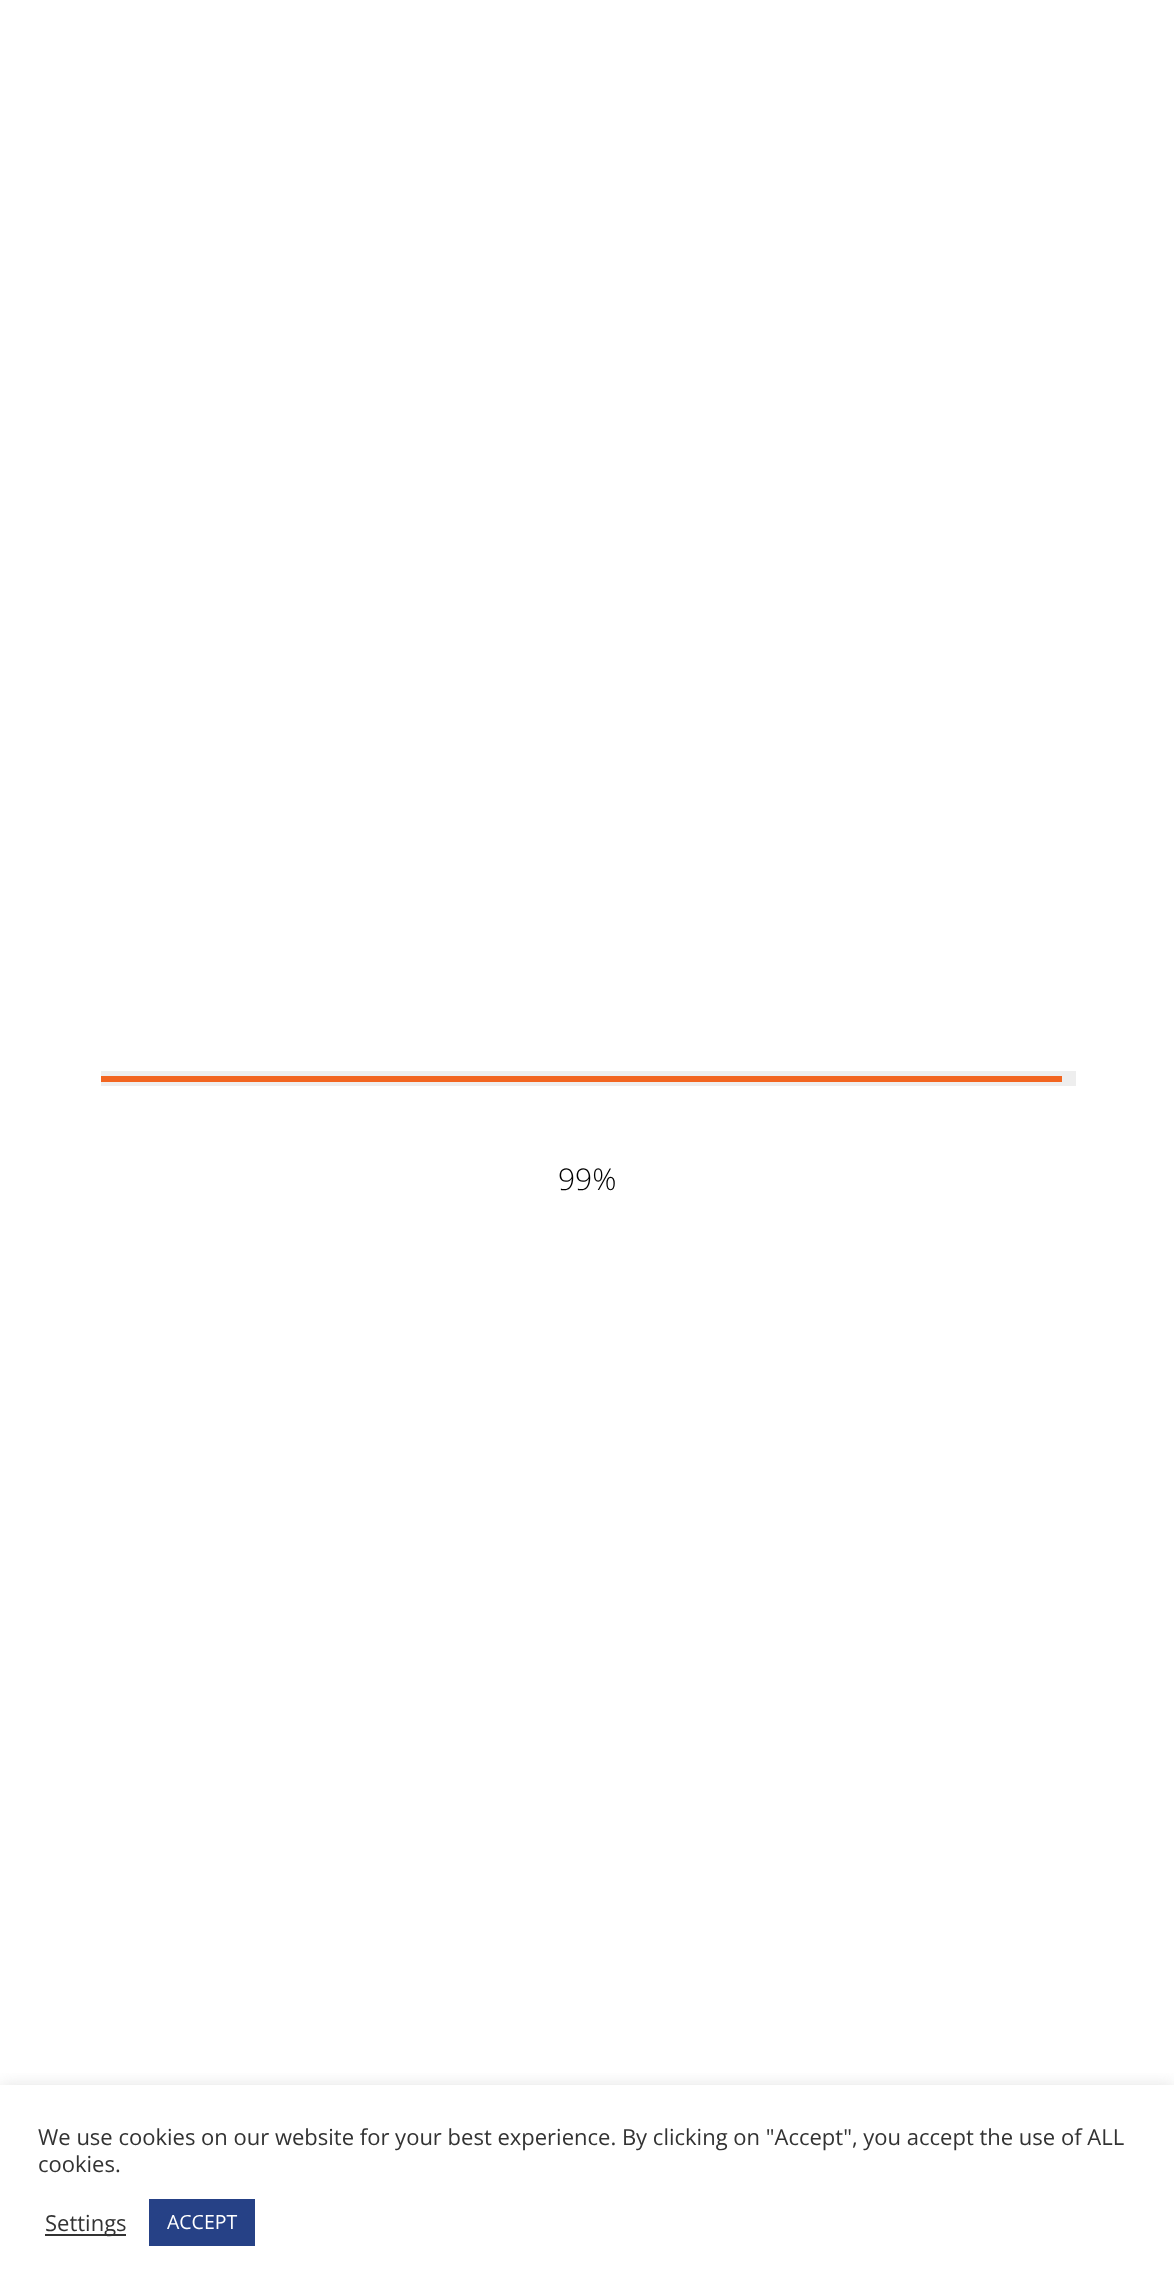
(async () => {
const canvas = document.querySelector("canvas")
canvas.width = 1174
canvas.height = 2290
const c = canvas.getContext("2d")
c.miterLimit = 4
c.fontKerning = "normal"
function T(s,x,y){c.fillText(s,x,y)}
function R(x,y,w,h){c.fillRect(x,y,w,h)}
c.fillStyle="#fff"
R(0,0,1174,2290)
c.fillStyle="#eee"
R(101,1071,975,15)
c.fillStyle="#f26520"
R(101,1076,961,6)
c.font="300 30px Open Sans"
c.fillStyle="#000"
T("99%",558,1190)
c.save()
c.beginPath()
c.rect(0,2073,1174,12)
c.clip()
c.fillStyle="#acabab4d"
c.filter="blur(7.5px)"
c.beginPath()
c.rect(0,2084,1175,205)
c.fill()
c.filter="none"
c.restore()
c.font="22px Open Sans"
c.fillStyle="#333"
T("We use cookies on our website for your best experience. By clicking on \"Accept\", you accept the use of ALL",38,2145)
T("cookies.",38,2172)
R(45,2234,81,2)
T("Settings",45,2231)
c.fillStyle="#264186"
R(149,2199,106,47)
c.font="19.5px Open Sans"
c.fillStyle="#fff"
T("ACCEPT",167,2229)
})()
